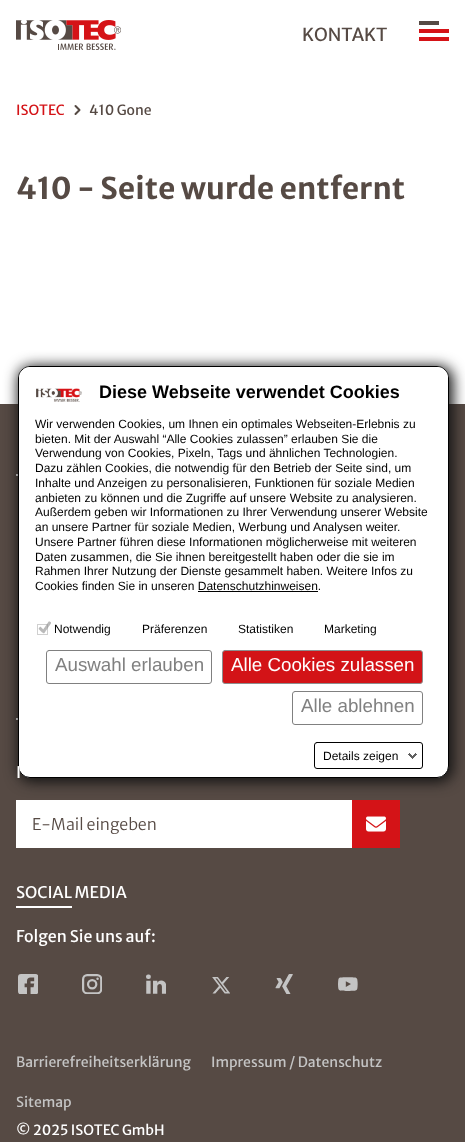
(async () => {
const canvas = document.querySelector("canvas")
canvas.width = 465
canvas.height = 1142
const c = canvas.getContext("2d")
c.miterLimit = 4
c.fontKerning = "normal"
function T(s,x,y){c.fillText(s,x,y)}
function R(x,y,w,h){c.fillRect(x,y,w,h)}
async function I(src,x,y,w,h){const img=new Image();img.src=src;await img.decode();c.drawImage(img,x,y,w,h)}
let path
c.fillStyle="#fff"
R(0,0,465,1142)
await I("1.png",16,20,105,30)
c.font="18px Merriweather Sans"
c.fillStyle="#564a44"
T("KONTAKT",302,41)
R(419,21,20,4)
c.fillStyle="#d51317"
R(419,37,30,4)
R(419,29,30,4)
c.font="14px Merriweather Sans"
c.fillStyle="#d41317"
T("ISOTEC",16,115)
path = new Path2D("M75.5 114l4-4l-4-4")
c.strokeStyle="#564a44"
c.lineWidth=2
c.lineCap="round"
c.lineJoin="round"
c.stroke(path)
c.fillStyle="#564a44"
T("410 Gone",89,115)
c.font="bold 30px Merriweather Sans"
T("410 - Seite wurde entfernt",16,199)
R(0,404,465,738)
c.fillStyle="#fff"
R(16,474,2,2)
R(16,718,2,2)
R(16,800,336,48)
c.fillStyle="#d41317"
R(352,800,48,48)
c.fillStyle="#121212"
c.filter="blur(7px)"
c.beginPath()
c.roundRect(18,366,435,416,14)
c.fill()
c.filter="none"
c.fillStyle="#fff"
c.beginPath()
c.roundRect(18.5,366.5,430,411,11.5)
c.fill()
c.strokeStyle="#000"
c.lineWidth=1
c.lineJoin="miter"
c.stroke()
c.beginPath()
c.roundRect(19,367,429,375,[11,11,0,0])
c.fill()
c.font="bold 18px Liberation Sans"
c.fillStyle="#000"
T("Diese Webseite verwendet Cookies",99,398)
c.font="12px Liberation Sans"
T("Wir verwenden Cookies, um Ihnen ein optimales Webseiten-Erlebnis zu",35,428)
T("bieten. Mit der Auswahl “Alle Cookies zulassen” erlauben Sie die",35,443)
T("Verwendung von Cookies, Pixeln, Tags und ähnlichen Technologien.",35,457)
T("Dazu zählen Cookies, die notwendig für den Betrieb der Seite sind, um",35,472)
T("Inhalte und Anzeigen zu personalisieren, Funktionen für soziale Medien",35,487)
T("anbieten zu können und die Zugriffe auf unsere Website zu analysieren.",35,502)
T("Außerdem geben wir Informationen zu Ihrer Verwendung unserer Website",35,516)
T("an unsere Partner für soziale Medien, Werbung und Analysen weiter.",35,531)
T("Unsere Partner führen diese Informationen möglicherweise mit weiteren",35,546)
T("Daten zusammen, die Sie ihnen bereitgestellt haben oder die sie im",35,561)
T("Rahmen Ihrer Nutzung der Dienste gesammelt haben. Weitere Infos zu",35,575)
T("Cookies finden Sie in unseren Datenschutzhinweisen.",35,590)
R(198,591,120,1)
await I("2.png",36,388,46,14)
await I("3.png",37,621,14,14)
T("Notwendig",54,633)
T("Präferenzen",142,633)
T("Statistiken",238,633)
T("Marketing",324,633)
c.beginPath()
c.roundRect(46.5,650.5,165,33,2.5)
c.strokeStyle="#808080"
c.stroke()
c.font="18.75px Liberation Sans"
c.fillStyle="#808080"
T("Auswahl erlauben",55,671)
c.fillStyle="#d31317"
c.beginPath()
c.roundRect(222.5,650.5,200,33,2.5)
c.fill()
c.strokeStyle="#8d8e8e"
c.stroke()
c.fillStyle="#fff"
T("Alle Cookies zulassen",231,671)
c.beginPath()
c.roundRect(292.5,691.5,130,33,2.5)
c.strokeStyle="#808080"
c.stroke()
c.fillStyle="#808080"
T("Alle ablehnen",301,712)
c.beginPath()
c.roundRect(314.5,742.5,108,26,2.5)
c.strokeStyle="#000"
c.stroke()
await I("4.png",408,753,9,6)
c.font="12px Liberation Sans"
c.fillStyle="#000"
T("Details zeigen",323,760)
c.font="16px Merriweather Sans"
c.fillStyle="#fff"
T("I",16,778)
c.font="300 16px Merriweather Sans"
c.fillStyle="#564a44"
T("E-Mail eingeben",32,830)
await I("5.png",366,816,20,16)
c.font="16px Merriweather Sans"
c.fillStyle="#fff"
T("SOCIAL MEDIA",16,898)
R(16,906,56,2)
T("Folgen Sie uns auf:",16,942)
await I("6.png",18,974,20,20)
await I("7.png",82,974,20,20)
await I("8.png",146,974,20,20)
await I("9.png",212,977,18,17)
await I("10.png",275,974,18,20)
await I("11.png",338,977,20,14)
c.font="14px Merriweather Sans"
c.fillStyle="#c4c4c4"
T("Barrierefreiheitserklärung",16,1067)
T("Impressum / Datenschutz",211,1067)
T("Sitemap",16,1107)
c.fillStyle="#fff"
T("© 2025 ISOTEC GmbH",16,1135)
})()
